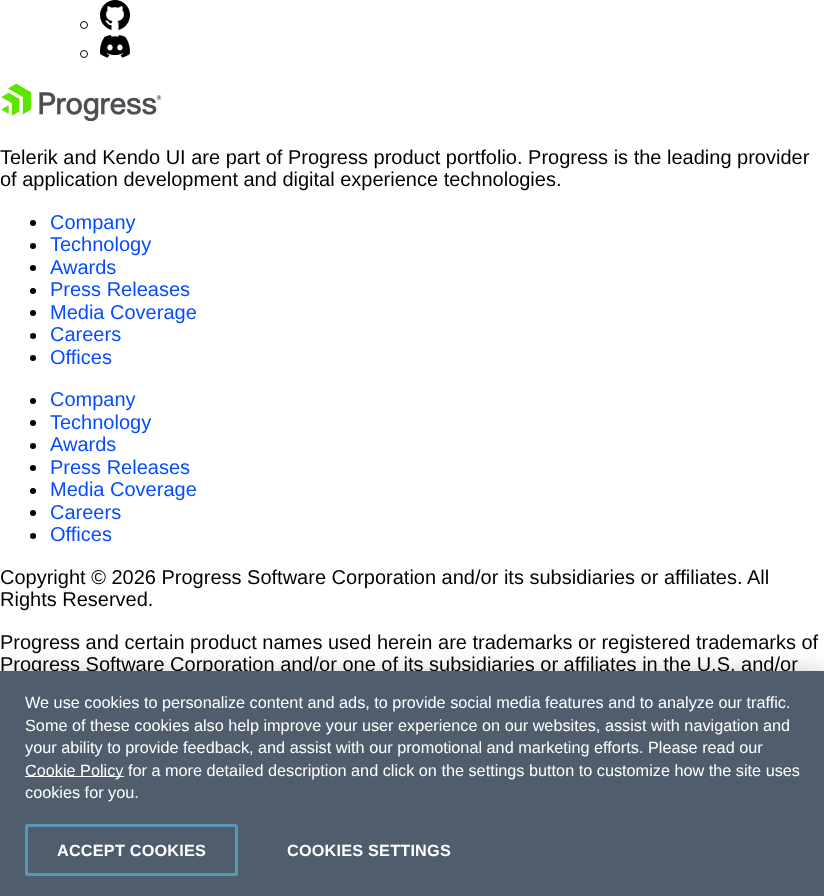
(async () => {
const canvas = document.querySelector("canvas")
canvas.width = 824
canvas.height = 896
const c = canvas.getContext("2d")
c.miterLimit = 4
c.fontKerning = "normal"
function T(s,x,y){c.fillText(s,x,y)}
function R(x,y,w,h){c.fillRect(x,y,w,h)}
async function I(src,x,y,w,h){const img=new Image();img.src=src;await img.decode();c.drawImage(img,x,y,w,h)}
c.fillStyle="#fff"
R(0,0,824,896)
c.beginPath()
c.arc(84,25,3.5,0,7)
c.strokeStyle="#000"
c.stroke()
await I("1.png",100,0,30,30)
c.beginPath()
c.arc(84,54,3.5,0,7)
c.stroke()
await I("2.png",100,35,30,23)
await I("3.png",1,84,161,37)
c.font="20px Liberation Sans"
c.fillStyle="#000"
T("Telerik and Kendo UI are part of Progress product portfolio. Progress is the leading provider",0,164)
T("of application development and digital experience technologies.",0,186)
c.beginPath()
c.arc(33,223,3,0,7)
c.fill()
c.fillStyle="#054bff"
T("Company",50,229)
c.fillStyle="#000"
c.beginPath()
c.arc(33,246,3,0,7)
c.fill()
c.fillStyle="#054bff"
T("Technology",50,251)
c.fillStyle="#000"
c.beginPath()
c.arc(33,268,3,0,7)
c.fill()
c.fillStyle="#054bff"
T("Awards",50,274)
c.fillStyle="#000"
c.beginPath()
c.arc(33,291,3,0,7)
c.fill()
c.fillStyle="#054bff"
T("Press Releases",50,296)
c.fillStyle="#000"
c.beginPath()
c.arc(33,313,3,0,7)
c.fill()
c.fillStyle="#054bff"
T("Media Coverage",50,319)
c.fillStyle="#000"
c.beginPath()
c.arc(33,336,3,0,7)
c.fill()
c.fillStyle="#054bff"
T("Careers",50,341)
c.fillStyle="#000"
c.beginPath()
c.arc(33,358,3,0,7)
c.fill()
c.fillStyle="#054bff"
T("Offices",50,364)
c.fillStyle="#000"
c.beginPath()
c.arc(33,401,3,0,7)
c.fill()
c.fillStyle="#054bff"
T("Company",50,406)
c.fillStyle="#000"
c.beginPath()
c.arc(33,423,3,0,7)
c.fill()
c.fillStyle="#054bff"
T("Technology",50,429)
c.fillStyle="#000"
c.beginPath()
c.arc(33,446,3,0,7)
c.fill()
c.fillStyle="#054bff"
T("Awards",50,451)
c.fillStyle="#000"
c.beginPath()
c.arc(33,468,3,0,7)
c.fill()
c.fillStyle="#054bff"
T("Press Releases",50,474)
c.fillStyle="#000"
c.beginPath()
c.arc(33,491,3,0,7)
c.fill()
c.fillStyle="#054bff"
T("Media Coverage",50,496)
c.fillStyle="#000"
c.beginPath()
c.arc(33,513,3,0,7)
c.fill()
c.fillStyle="#054bff"
T("Careers",50,519)
c.fillStyle="#000"
c.beginPath()
c.arc(33,536,3,0,7)
c.fill()
c.fillStyle="#054bff"
T("Offices",50,541)
c.fillStyle="#000"
T("Copyright © 2026 Progress Software Corporation and/or its subsidiaries or affiliates. All",0,584)
T("Rights Reserved.",0,606)
T("Progress and certain product names used herein are trademarks or registered trademarks of",0,649)
T("Progress Software Corporation and/or one of its subsidiaries or affiliates in the U.S. and/or",0,671)
c.fillStyle="#00000033"
c.filter="blur(11px)"
c.beginPath()
c.rect(0,671,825,225)
c.fill()
c.filter="none"
c.fillStyle="#4f5d6c"
R(0,671,824,225)
c.font="16.25px Liberation Sans"
c.fillStyle="#fff"
T("We use cookies to personalize content and ads, to provide social media features and to analyze our traffic.",25,708)
T("Some of these cookies also help improve your user experience on our websites, assist with navigation and",25,731)
T("your ability to provide feedback, and assist with our promotional and marketing efforts. Please read our",25,753)
R(25,776,99,1)
T("Cookie Policy for a more detailed description and click on the settings button to customize how the site uses",25,776)
T("cookies for you.",25,798)
c.beginPath()
c.roundRect(26.5,825.5,210,49,1)
c.strokeStyle="#5699b6"
c.lineWidth=3
c.stroke()
c.letterSpacing="0.2px"
c.font="bold 16.25px Liberation Sans"
T("ACCEPT COOKIES",57,856)
T("COOKIES SETTINGS",287,856)
})()
